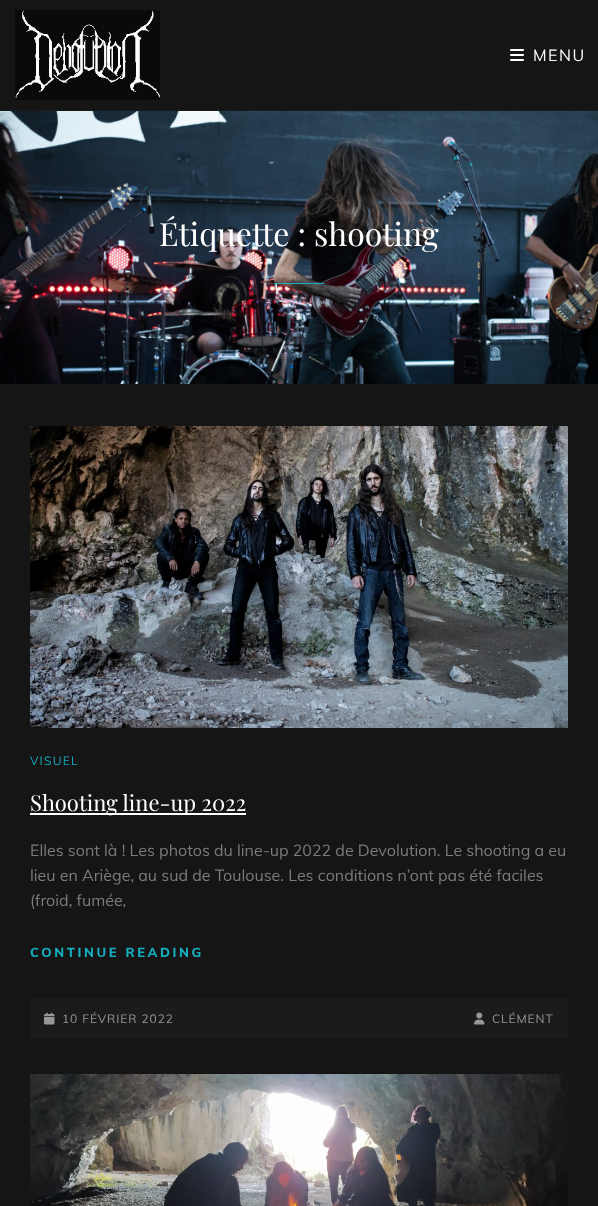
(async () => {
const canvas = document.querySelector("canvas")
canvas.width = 598
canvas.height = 1206
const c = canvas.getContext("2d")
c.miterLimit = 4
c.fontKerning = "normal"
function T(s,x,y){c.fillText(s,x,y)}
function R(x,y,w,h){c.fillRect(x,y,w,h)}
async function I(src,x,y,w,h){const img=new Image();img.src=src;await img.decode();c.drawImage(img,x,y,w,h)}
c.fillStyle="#151515"
R(0,0,598,1206)
c.fillStyle="#1b1b1b"
R(0,110,598,1)
await I("1.png",15,10,145,90)
await I("2.png",510,49,14,12)
c.letterSpacing="1.5px"
c.font="16px Muli"
c.fillStyle="#fff"
T("MENU",533,61)
await I("3.png",0,111,598,273)
c.letterSpacing="0px"
c.font="32px Playfair Display"
T("Étiquette : shooting",159,246)
c.fillStyle="#15aebf"
R(274,283,50,1)
await I("4.png",30,426,538,302)
c.letterSpacing="1.25px"
c.font="12px Muli"
T("VISUEL",30,765)
c.fillStyle="#fff"
R(30,813,216,2)
c.letterSpacing="0px"
c.font="22px Playfair Display"
T("Shooting line-up 2022",30,811)
c.font="16px Muli"
c.fillStyle="#7b7b7b"
T("Elles sont là ! Les photos du line-up 2022 de Devolution. Le shooting a eu",30,856)
T("lieu en Ariège, au sud de Toulouse. Les conditions n’ont pas été faciles",30,881)
T("(froid, fumée,",30,906)
c.letterSpacing="2.6px"
c.font="800 13px Muli"
c.fillStyle="#15aebf"
T("CONTINUE READING",30,957)
c.fillStyle="#1b1b1b"
R(30,999,538,40)
await I("5.png",44,1012,11,13)
c.letterSpacing="0.9px"
c.font="12px Muli"
c.fillStyle="#979797"
T("10 FÉVRIER 2022",62,1023)
await I("6.png",474,1012,11,13)
T("CLÉMENT",492,1023)
await I("7.png",30,1074,538,132)
})()
